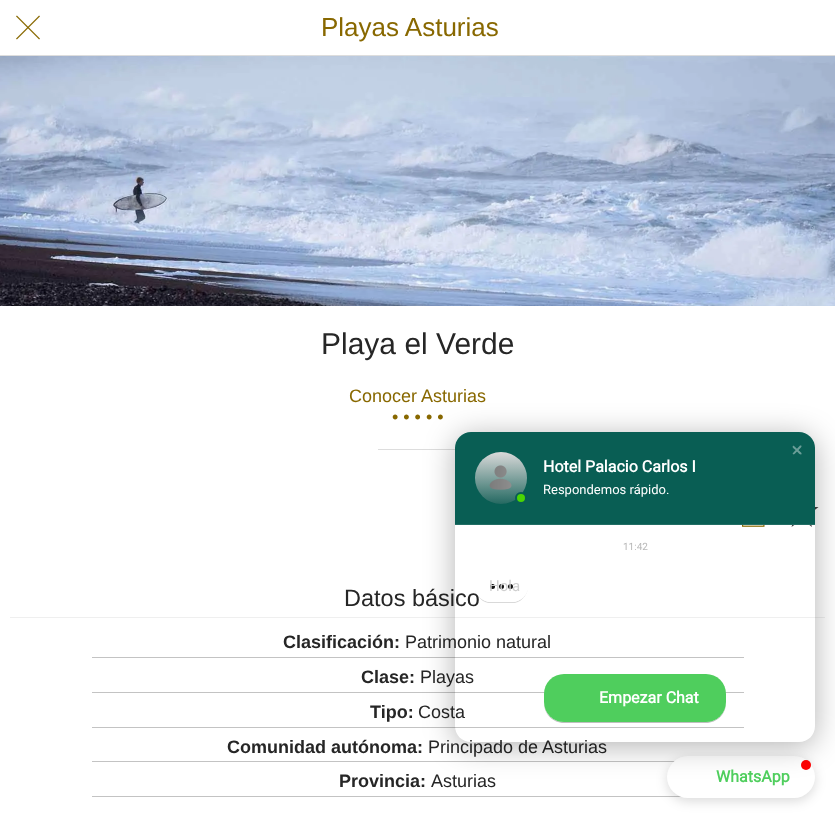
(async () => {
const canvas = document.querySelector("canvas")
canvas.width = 835
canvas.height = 818
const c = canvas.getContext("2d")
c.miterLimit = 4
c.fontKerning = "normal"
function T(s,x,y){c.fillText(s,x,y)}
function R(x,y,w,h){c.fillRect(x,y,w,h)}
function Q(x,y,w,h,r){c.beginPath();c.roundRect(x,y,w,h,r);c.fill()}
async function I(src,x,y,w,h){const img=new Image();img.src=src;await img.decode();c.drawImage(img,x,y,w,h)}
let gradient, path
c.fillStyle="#fff"
R(0,0,835,818)
c.fillStyle="#ddd"
R(0,55,835,1)
await I("1.png",16,15,24,25)
c.font="26px Liberation Sans"
c.fillStyle="#886800"
T("Playas Asturias",321,36)
await I("2.png",0,56,835,250)
c.font="30px Liberation Sans"
c.fillStyle="#262626"
T("Playa el Verde",321,354)
c.font="18px Liberation Sans"
c.fillStyle="#886800"
T("Conocer Asturias",349,402)
T("• • • • •",392,423)
c.fillStyle="#ddd"
R(378,449,80,1)
await I("3.png",742,525,23,2)
c.fillStyle="#424142"
path = new Path2D("M818.5 507h-12.5l-4-12l-4.5 12h-12.5l10 8l-3.5 12l10.5-7.5l10 7.5l-3.5-12z")
c.fill(path)
c.fillStyle="#efefef"
R(10,617,815,1)
c.font="23.5px Liberation Sans"
c.fillStyle="#262626"
T("Datos básico",344,606)
c.fillStyle="#c3c3c3"
R(92,657,652,1)
c.font="bold 18px Liberation Sans"
c.fillStyle="#262626"
T("Clasificación:",283,648)
c.font="18px Liberation Sans"
T("Patrimonio natural",405,648)
c.fillStyle="#c3c3c3"
R(92,692,652,1)
c.font="bold 18px Liberation Sans"
c.fillStyle="#262626"
T("Clase:",361,683)
c.font="18px Liberation Sans"
T("Playas",420,683)
c.fillStyle="#c3c3c3"
R(92,727,652,1)
c.font="bold 18px Liberation Sans"
c.fillStyle="#262626"
T("Tipo:",370,718)
c.font="18px Liberation Sans"
T("Costa",418,718)
c.fillStyle="#c3c3c3"
R(92,761,583,1)
c.font="bold 18px Liberation Sans"
c.fillStyle="#262626"
T("Comunidad autónoma:",227,753)
c.font="18px Liberation Sans"
T("Principado de Asturias",428,753)
c.fillStyle="#c3c3c3"
R(92,796,590,1)
c.font="bold 18px Liberation Sans"
c.fillStyle="#262626"
T("Provincia:",339,787)
c.font="18px Liberation Sans"
T("Asturias",431,787)
c.fillStyle="#00000026"
c.filter="blur(6px)"
c.beginPath()
c.roundRect(667,759,148,42,21)
c.fill()
c.filter="none"
c.fillStyle="#fff"
Q(667,756,148,42,21)
c.fillStyle="#f00"
c.beginPath()
c.arc(806,765,5,0,7)
c.fill()
c.save()
path = new Path2D("M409 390h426v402h-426zm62 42h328c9 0 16 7 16 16v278c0 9-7 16-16 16h-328c-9 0-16-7-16-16v-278c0-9 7-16 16-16z")
c.clip(path,"evenodd")
c.fillStyle="#0000004d"
c.filter="blur(15px)"
c.beginPath()
c.roundRect(455,436,360,310,16)
c.fill()
c.filter="none"
c.restore()
c.fillStyle="#095e54"
c.beginPath()
c.roundRect(455,432,360,93,[16,16,0,0])
c.fill()
c.fillStyle="#6b9e98"
path = new Path2D("M794 446l7.5 7v1c-.5 1.5-2.5-.5-3-1l-3.5-3.5c-.5-.5-3.5-2.5-2-3.5c0-.5 1-.5 1 0z")
c.fill(path)
path = new Path2D("M793 453l7-7.5h1c1.5 .5-.5 2.5-1 3l-3.5 3.5c-.5 .5-2.5 3.5-3.5 2c-.5 0-.5-1 0-1z")
c.fill(path)
c.fillStyle="#226e65"
R(455,524,360,1)
gradient = c.createLinearGradient(501,452,501,504)
gradient.addColorStop(0,"#e5e5e5")
gradient.addColorStop(1,"#266e66")
c.fillStyle = gradient
c.beginPath()
c.arc(501,478,26,0,7)
c.fill()
await I("4.png",489,465,23,25)
c.fillStyle="#1111110d"
path = new Path2D("M501 452c34 0 34 52 0 52c-34 0-34-52 0-52z")
c.fill(path)
c.fillStyle="#4ad504"
c.beginPath()
c.arc(521,498,5,0,7)
c.fill()
c.strokeStyle="#095e54"
c.lineWidth=2
c.stroke()
c.font="bold 16px Roboto"
c.fillStyle="#fff"
T("Hotel Palacio Carlos I",543,472)
c.font="13px Roboto"
T("Respondemos rápido.",543,494)
c.font="10px Roboto"
c.fillStyle="#b8b8b8"
T("11:42",623,550)
c.fillStyle="#00000026"
path = new Path2D("M475 586c0 8 5 15 13 17h27c8-2 13-9 13-17c0 9-7 16-16 16h-21c-9 0-16-7-16-16z")
c.fill(path)
c.fillStyle="#fff"
Q(475,570,53,32,16)
c.fillStyle="#111"
c.beginPath()
c.arc(492.5,586.5,2.5,0,7)
c.fill()
c.beginPath()
c.arc(501.5,586.5,2.5,0,7)
c.fill()
c.beginPath()
c.arc(510.5,586.5,2.5,0,7)
c.fill()
c.font="15px Roboto"
c.fillStyle="#cfcfcf"
T("Hola",489,591)
c.fillStyle="#bfbfbf"
path = new Path2D("M544 702v1c0 11 9 20 20 20h142c11 0 20-9 20-20v-1c0 11-9 20-20 20h-142c-11 0-20-9-20-20z")
c.fill(path)
c.fillStyle="#4fce5d"
Q(544,674,182,48,20)
c.font="bold 16px Roboto"
c.fillStyle="#fff"
T("Empezar Chat",599,703)
c.fillStyle="#4fce5d"
T("WhatsApp",716,782)
})()
